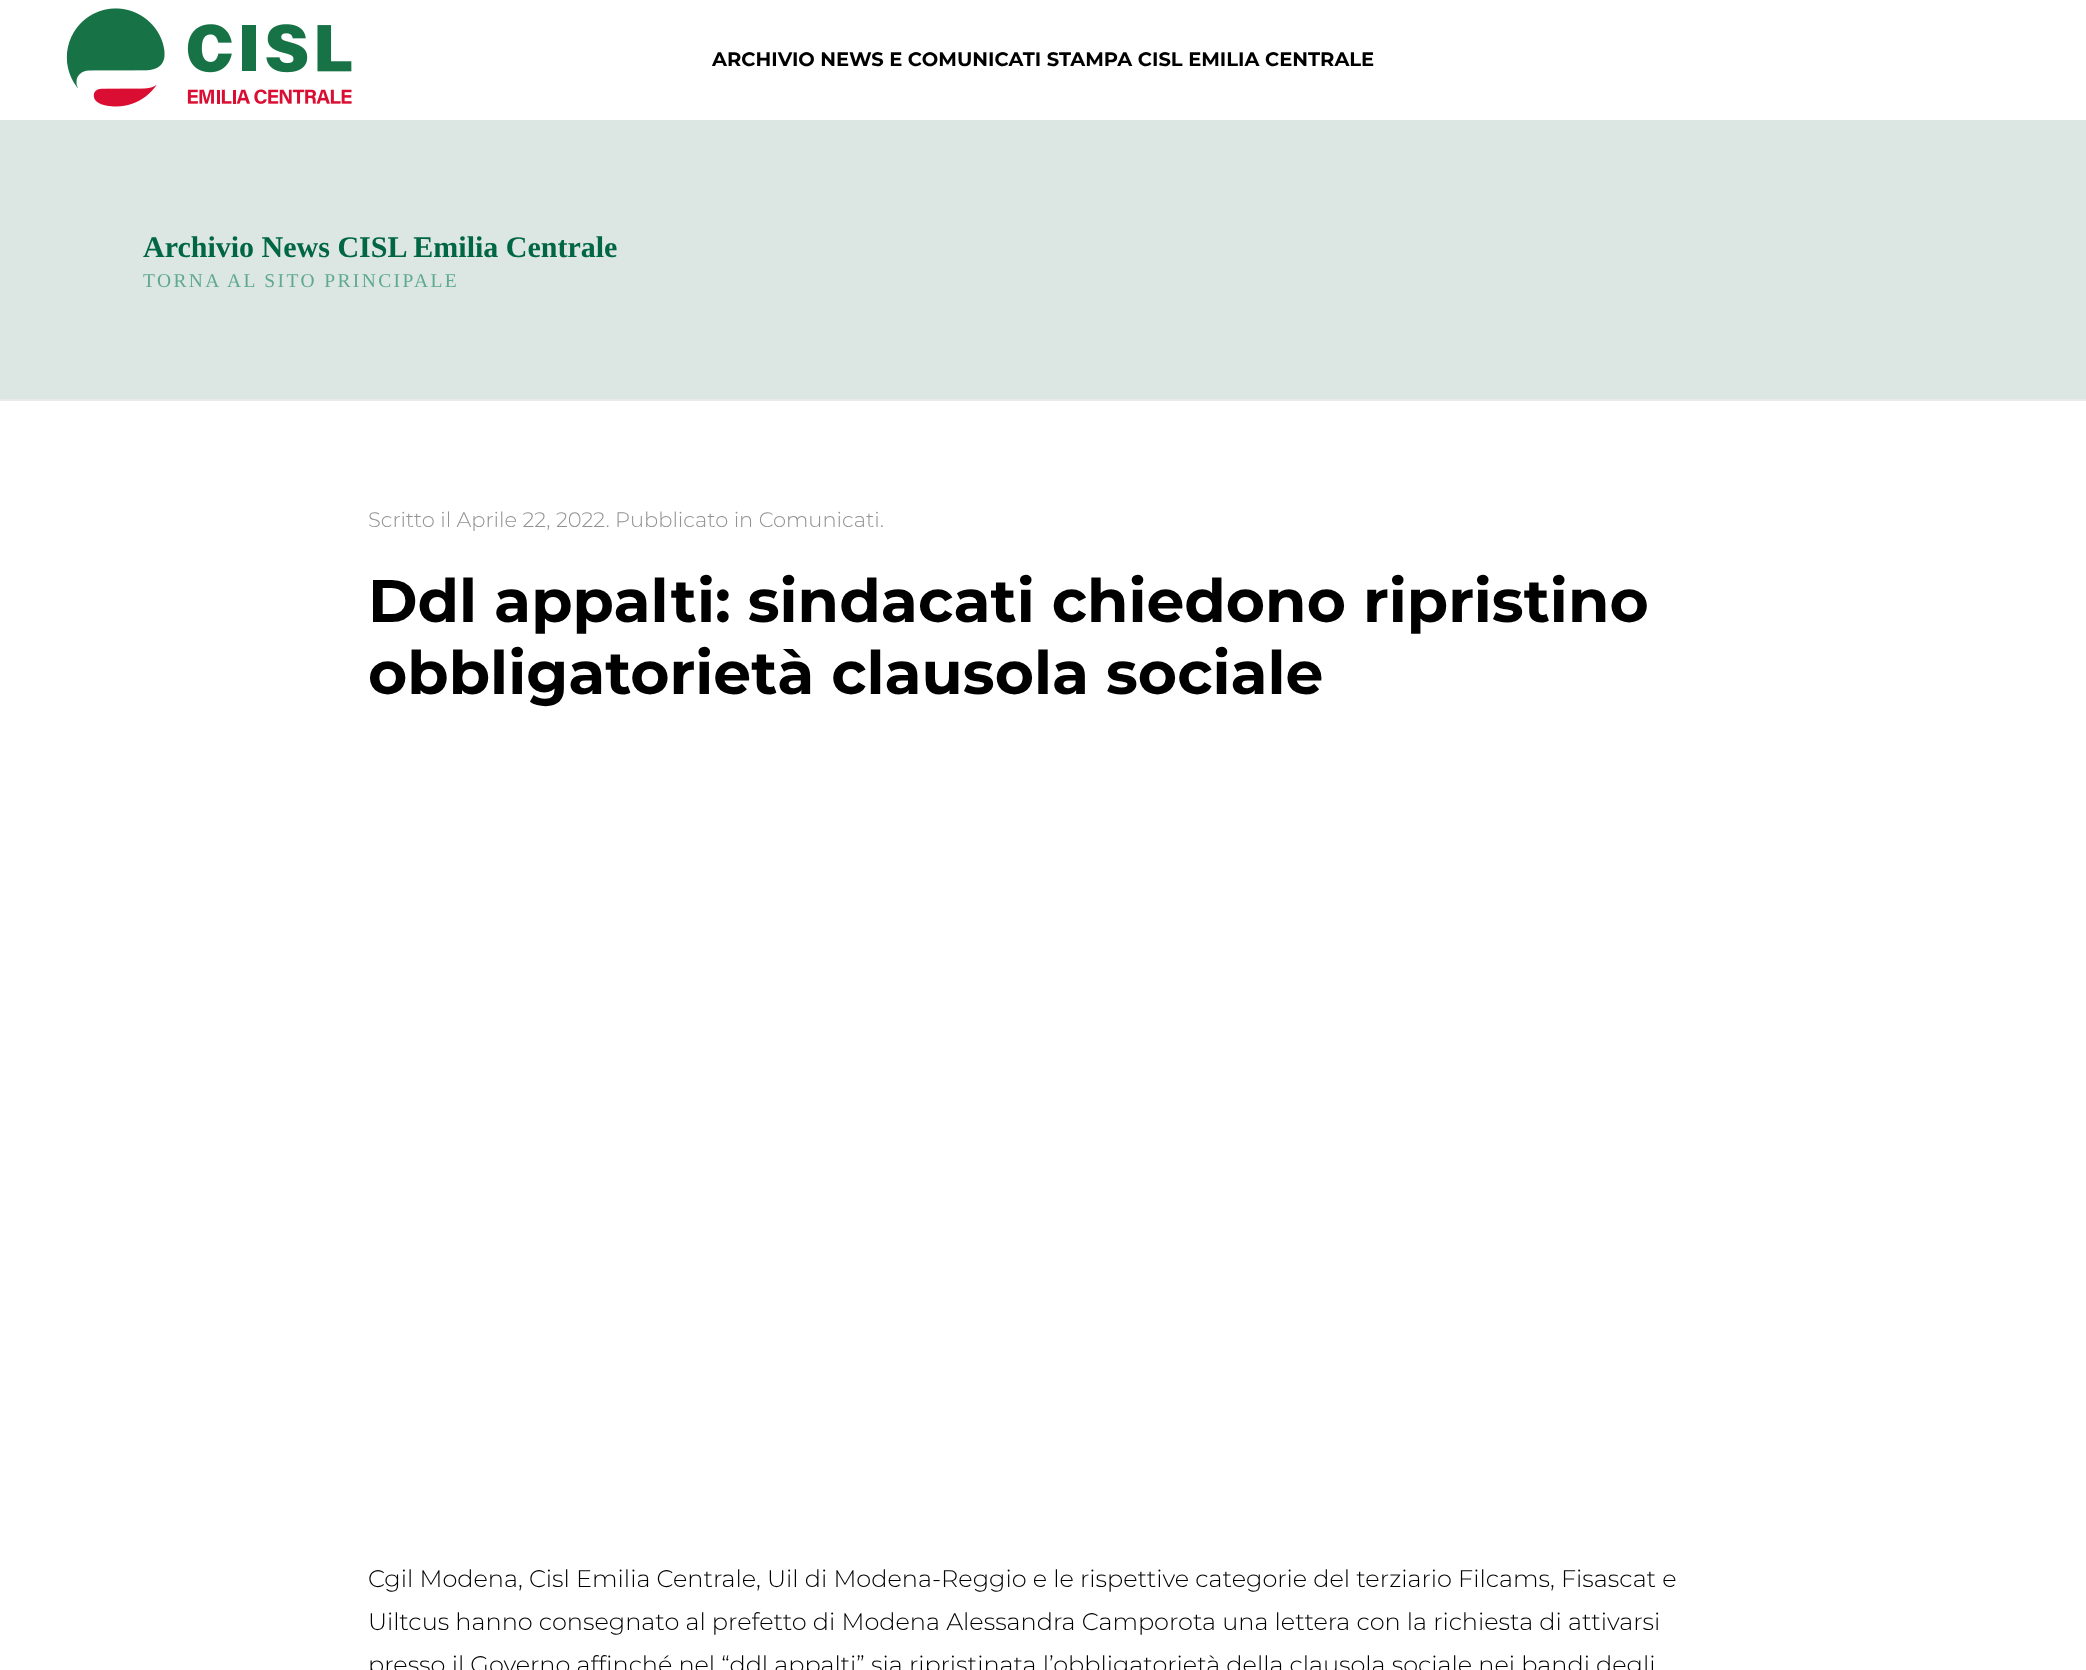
(async () => {
const canvas = document.querySelector("canvas")
canvas.width = 2086
canvas.height = 1670
const c = canvas.getContext("2d")
c.miterLimit = 4
c.fontKerning = "normal"
function T(s,x,y){c.fillText(s,x,y)}
function R(x,y,w,h){c.fillRect(x,y,w,h)}
async function I(src,x,y,w,h){const img=new Image();img.src=src;await img.decode();c.drawImage(img,x,y,w,h)}
c.fillStyle="#fff"
R(0,0,2086,1670)
await I("1.png",66,8,286,99)
c.font="100 19.5px Montserrat"
c.fillStyle="#000"
T("ARCHIVIO NEWS E COMUNICATI STAMPA CISL EMILIA CENTRALE",712,66)
c.fillStyle="#dce6e3"
R(0,120,2086,279)
c.font="bold 30px Liberation Serif"
c.fillStyle="#006643"
T("Archivio News CISL Emilia Centrale",143,257)
c.letterSpacing="2.4px"
c.font="19.5px Liberation Serif"
c.fillStyle="#5fa98e"
T("TORNA AL SITO PRINCIPALE",143,287)
c.fillStyle="#eaeaea"
R(0,399,2086,2)
c.letterSpacing="0px"
c.font="300 21px Montserrat"
c.fillStyle="#919291"
T("Scritto il Aprile 22, 2022. Pubblicato in Comunicati.",368,527)
c.font="100 60px Montserrat"
c.fillStyle="#000"
T("Ddl appalti: sindacati chiedono ripristino",368,622)
T("obbligatorietà clausola sociale",368,694)
c.font="300 24px Montserrat"
T("Cgil Modena, Cisl Emilia Centrale, Uil di Modena-Reggio e le rispettive categorie del terziario Filcams, Fisascat e",368,1587)
T("Uiltcus hanno consegnato al prefetto di Modena Alessandra Camporota una lettera con la richiesta di attivarsi",368,1630)
T("presso il Governo affinché nel “ddl appalti” sia ripristinata l’obbligatorietà della clausola sociale nei bandi degli",368,1673)
})()
